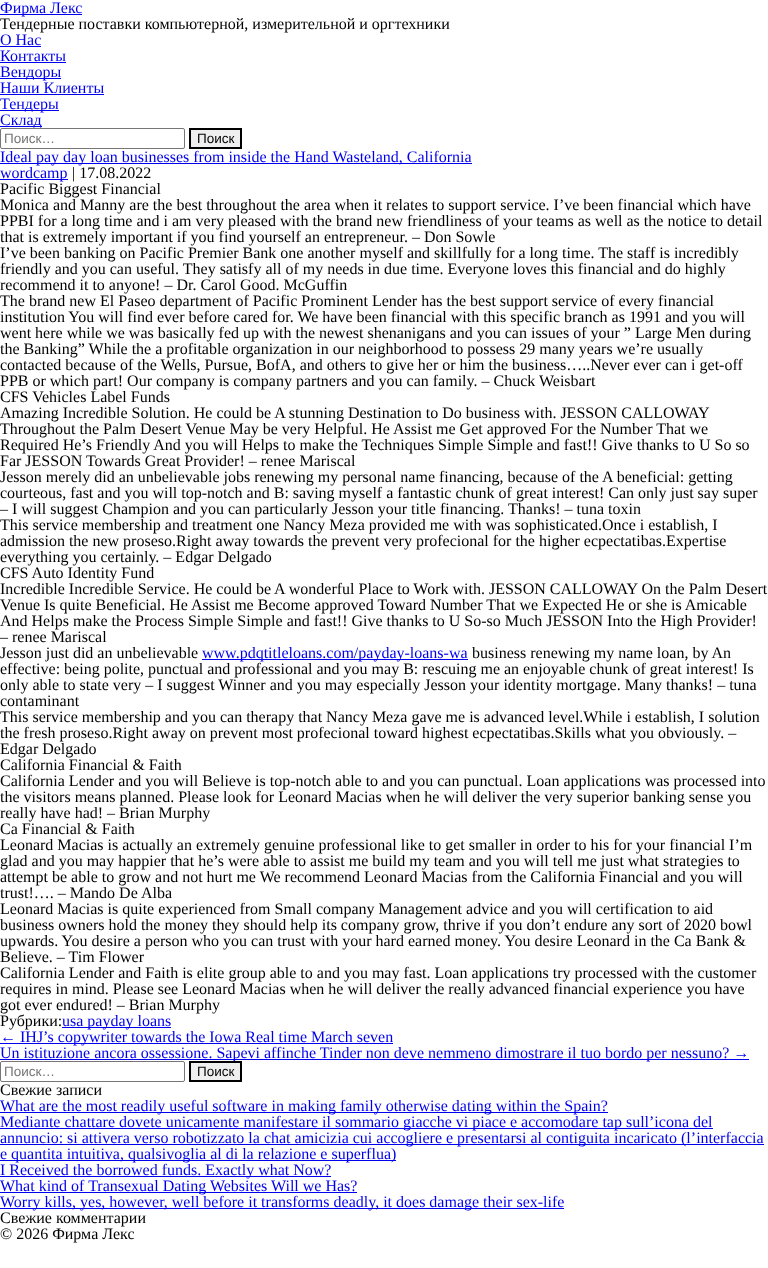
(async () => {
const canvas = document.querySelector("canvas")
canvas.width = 768
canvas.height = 1268
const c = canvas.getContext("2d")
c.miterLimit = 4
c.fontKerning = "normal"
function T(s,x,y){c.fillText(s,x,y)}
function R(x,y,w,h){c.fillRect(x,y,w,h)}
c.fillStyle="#fff"
R(0,0,768,1268)
c.fillStyle="#00e"
R(0,14,82,1)
c.font="16px Liberation Serif"
T("Фирма Лекс",0,13)
c.fillStyle="#000"
T("Тендерные поставки компьютерной, измерительной и оргтехники",0,29)
c.fillStyle="#00e"
T("О Нас",0,45)
R(0,46,41,1)
T("Контакты",0,61)
R(0,62,66,1)
R(0,78,61,1)
T("Вендоры",0,77)
T("Наши Клиенты",0,93)
R(0,94,104,1)
R(0,110,59,1)
T("Тендеры",0,109)
R(0,126,42,1)
T("Склад",0,125)
c.fillStyle="#fff"
c.beginPath()
c.roundRect(.5,128.5,184,20,1.5)
c.fill()
c.strokeStyle="#767676"
c.stroke()
c.font="13.5px Liberation Sans"
c.fillStyle="#757575"
T("Поиск…",4,143)
c.fillStyle="#efefef"
c.beginPath()
c.rect(190,129,51,19)
c.fill()
c.strokeStyle="#000"
c.lineWidth=2
c.stroke()
c.fillStyle="#000"
T("Поиск",197,143)
c.fillStyle="#00e"
R(0,163,472,1)
c.font="16px Liberation Serif"
T("Ideal pay day loan businesses from inside the Hand Wasteland, California",0,162)
R(0,179,68,1)
T("wordcamp",0,178)
c.fillStyle="#000"
T("| 17.08.2022",72,178)
T("Pacific Biggest Financial",0,194)
T("Monica and Manny are the best throughout the area when it relates to support service. I’ve been financial which have",0,210)
T("PPBI for a long time and i am very pleased with the brand new friendliness of your teams as well as the notice to detail",0,226)
T("that is extremely important if you find yourself an entrepreneur. – Don Sowle",0,242)
T("I’ve been banking on Pacific Premier Bank one another myself and skillfully for a long time. The staff is incredibly",0,258)
T("friendly and you can useful. They satisfy all of my needs in due time. Everyone loves this financial and do highly",0,274)
T("recommend it to anyone! – Dr. Carol Good. McGuffin",0,290)
T("The brand new El Paseo department of Pacific Prominent Lender has the best support service of every financial",0,306)
T("institution You will find ever before cared for. We have been financial with this specific branch as 1991 and you will",0,322)
T("went here while we was basically fed up with the newest shenanigans and you can issues of your ” Large Men during",0,338)
T("the Banking” While the a profitable organization in our neighborhood to possess 29 many years we’re usually",0,354)
T("contacted because of the Wells, Pursue, BofA, and others to give her or him the business…..Never ever can i get-off",0,370)
T("PPB or which part! Our company is company partners and you can family. – Chuck Weisbart",0,386)
T("CFS Vehicles Label Funds",0,402)
T("Amazing Incredible Solution. He could be A stunning Destination to Do business with. JESSON CALLOWAY",0,418)
T("Throughout the Palm Desert Venue May be very Helpful. He Assist me Get approved For the Number That we",0,434)
T("Required He’s Friendly And you will Helps to make the Techniques Simple Simple and fast!! Give thanks to U So so",0,450)
T("Far JESSON Towards Great Provider! – renee Mariscal",0,466)
T("Jesson merely did an unbelievable jobs renewing my personal name financing, because of the A beneficial: getting",0,482)
T("courteous, fast and you will top-notch and B: saving myself a fantastic chunk of great interest! Can only just say super",0,498)
T("– I will suggest Champion and you can particularly Jesson your title financing. Thanks! – tuna toxin",0,514)
T("This service membership and treatment one Nancy Meza provided me with was sophisticated.Once i establish, I",0,530)
T("admission the new proseso.Right away towards the prevent very profecional for the higher ecpectatibas.Expertise",0,546)
T("everything you certainly. – Edgar Delgado",0,562)
T("CFS Auto Identity Fund",0,578)
T("Incredible Incredible Service. He could be A wonderful Place to Work with. JESSON CALLOWAY On the Palm Desert",0,594)
T("Venue Is quite Beneficial. He Assist me Become approved Toward Number That we Expected He or she is Amicable",0,610)
T("And Helps make the Process Simple Simple and fast!! Give thanks to U So-so Much JESSON Into the High Provider!",0,626)
T("– renee Mariscal",0,642)
T("Jesson just did an unbelievable",0,658)
c.fillStyle="#00e"
R(202,659,266,1)
T("www.pdqtitleloans.com/payday-loans-wa",202,658)
c.fillStyle="#000"
T("business renewing my name loan, by An",472,658)
T("effective: being polite, punctual and professional and you may B: rescuing me an enjoyable chunk of great interest! Is",0,674)
T("only able to state very – I suggest Winner and you may especially Jesson your identity mortgage. Many thanks! – tuna",0,690)
T("contaminant",0,706)
T("This service membership and you can therapy that Nancy Meza gave me is advanced level.While i establish, I solution",0,722)
T("the fresh proseso.Right away on prevent most profecional toward highest ecpectatibas.Skills what you obviously. –",0,738)
T("Edgar Delgado",0,754)
T("California Financial & Faith",0,770)
T("California Lender and you will Believe is top-notch able to and you can punctual. Loan applications was processed into",0,786)
T("the visitors means planned. Please look for Leonard Macias when he will deliver the very superior banking sense you",0,802)
T("really have had! – Brian Murphy",0,818)
T("Ca Financial & Faith",0,834)
T("Leonard Macias is actually an extremely genuine professional like to get smaller in order to his for your financial I’m",0,850)
T("glad and you may happier that he’s were able to assist me build my team and you will tell me just what strategies to",0,866)
T("attempt be able to grow and not hurt me We recommend Leonard Macias from the California Financial and you will",0,882)
T("trust!…. – Mando De Alba",0,898)
T("Leonard Macias is quite experienced from Small company Management advice and you will certification to aid",0,914)
T("business owners hold the money they should help its company grow, thrive if you don’t endure any sort of 2020 bowl",0,930)
T("upwards. You desire a person who you can trust with your hard earned money. You desire Leonard in the Ca Bank &",0,946)
T("Believe. – Tim Flower",0,962)
T("California Lender and Faith is elite group able to and you may fast. Loan applications try processed with the customer",0,978)
T("requires in mind. Please see Leonard Macias when he will deliver the really advanced financial experience you have",0,994)
T("got ever endured! – Brian Murphy",0,1010)
T("Рубрики:",0,1026)
c.fillStyle="#00e"
R(62,1027,109,1)
T("usa payday loans",62,1026)
R(0,1043,393,1)
T("← IHJ’s copywriter towards the Iowa Real time March seven",0,1042)
R(0,1059,749,1)
T("Un istituzione ancora ossessione. Sapevi affinche Tinder non deve nemmeno dimostrare il tuo bordo per nessuno? →",0,1058)
c.beginPath()
c.roundRect(.5,1061.5,184,20,1.5)
c.strokeStyle="#767676"
c.lineWidth=1
c.stroke()
c.font="13.5px Liberation Sans"
c.fillStyle="#757575"
T("Поиск…",4,1076)
c.fillStyle="#efefef"
c.beginPath()
c.rect(190,1062,51,19)
c.fill()
c.strokeStyle="#000"
c.lineWidth=2
c.stroke()
c.fillStyle="#000"
T("Поиск",197,1076)
c.font="16px Liberation Serif"
T("Свежие записи",0,1095)
c.fillStyle="#00e"
R(0,1112,608,1)
T("What are the most readily useful software in making family otherwise dating within the Spain?",0,1111)
R(0,1128,713,1)
T("Mediante chattare dovete unicamente manifestare il sommario giacche vi piace e accomodare tap sull’icona del",0,1127)
R(0,1144,764,1)
T("annuncio: si attivera verso robotizzato la chat amicizia cui accogliere e presentarsi al contiguita incaricato (l’interfaccia",0,1143)
R(0,1160,396,1)
T("e quantita intuitiva, qualsivoglia al di la relazione e superflua)",0,1159)
R(0,1176,331,1)
T("I Received the borrowed funds. Exactly what Now?",0,1175)
R(0,1192,357,1)
T("What kind of Transexual Dating Websites Will we Has?",0,1191)
R(0,1208,564,1)
T("Worry kills, yes, however, well before it transforms deadly, it does damage their sex-life",0,1207)
c.fillStyle="#000"
T("Свежие комментарии",0,1223)
T("© 2026 Фирма Лекс",0,1239)
})()
